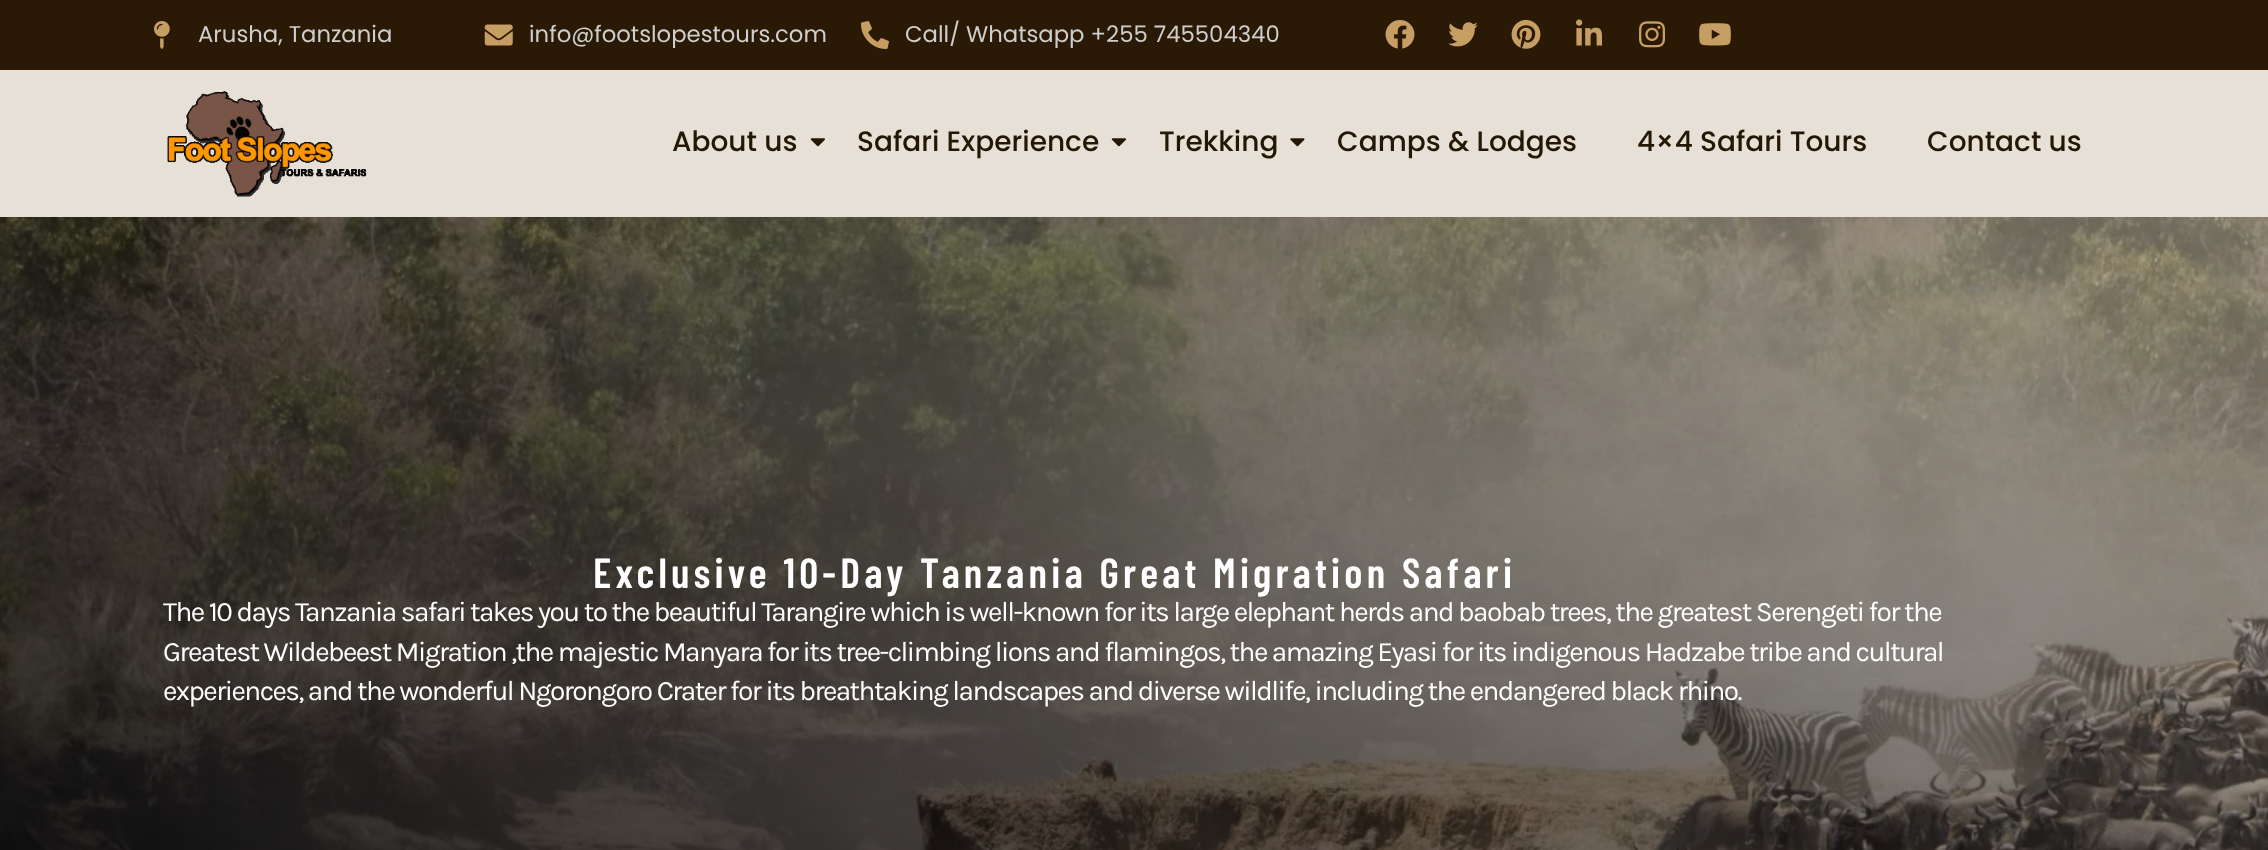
(async () => {
const canvas = document.querySelector("canvas")
canvas.width = 2268
canvas.height = 850
const c = canvas.getContext("2d")
c.miterLimit = 4
c.fontKerning = "normal"
function T(s,x,y){c.fillText(s,x,y)}
function R(x,y,w,h){c.fillRect(x,y,w,h)}
async function I(src,x,y,w,h){const img=new Image();img.src=src;await img.decode();c.drawImage(img,x,y,w,h)}
c.fillStyle="#fff"
R(0,0,2268,850)
c.fillStyle="#2a1904"
R(0,0,2268,70)
await I("1.png",154,21,16,28)
c.font="22.75px Poppins"
c.fillStyle="#cececd"
T("Arusha, Tanzania",198,42)
await I("2.png",484,24,29,22)
T("info@footslopestours.com",529,42)
await I("3.png",861,21,28,28)
T("Call/ Whatsapp +255 745504340",905,42)
await I("4.png",1385,19,30,30)
await I("5.png",1448,22,30,25)
await I("6.png",1511,19,30,30)
await I("7.png",1576,19,26,27)
await I("8.png",1639,21,27,27)
await I("9.png",1699,23,32,23)
c.fillStyle="#e6e0d7"
R(0,70,2268,147)
await I("10.png",167,91,200,106)
c.font="500 28px Poppins"
c.fillStyle="#241704"
T("About us",672,151)
await I("11.png",810,138,15,9)
T("Safari Experience",857,151)
await I("11.png",1111,138,15,9)
T("Trekking",1159,151)
await I("12.png",1290,138,15,9)
T("Camps & Lodges",1337,151)
T("4×4 Safari Tours",1637,151)
T("Contact us",1927,151)
await I("13.png",0,217,2268,633)
c.letterSpacing="4.2px"
c.font="600 42px Barlow Condensed"
c.fillStyle="#fff"
T("Exclusive 10-Day Tanzania Great Migration Safari",593,588)
c.letterSpacing="-1.57px"
c.font="28px Karla"
T("The 10 days Tanzania safari takes you to the beautiful Tarangire which is well-known for its large elephant herds and baobab trees, the greatest Serengeti for the",163,621)
T("Greatest Wildebeest Migration ,the majestic Manyara for its tree-climbing lions and flamingos, the amazing Eyasi for its indigenous Hadzabe tribe and cultural",163,661)
T("experiences, and the wonderful Ngorongoro Crater for its breathtaking landscapes and diverse wildlife, including the endangered black rhino.",163,700)
})()
